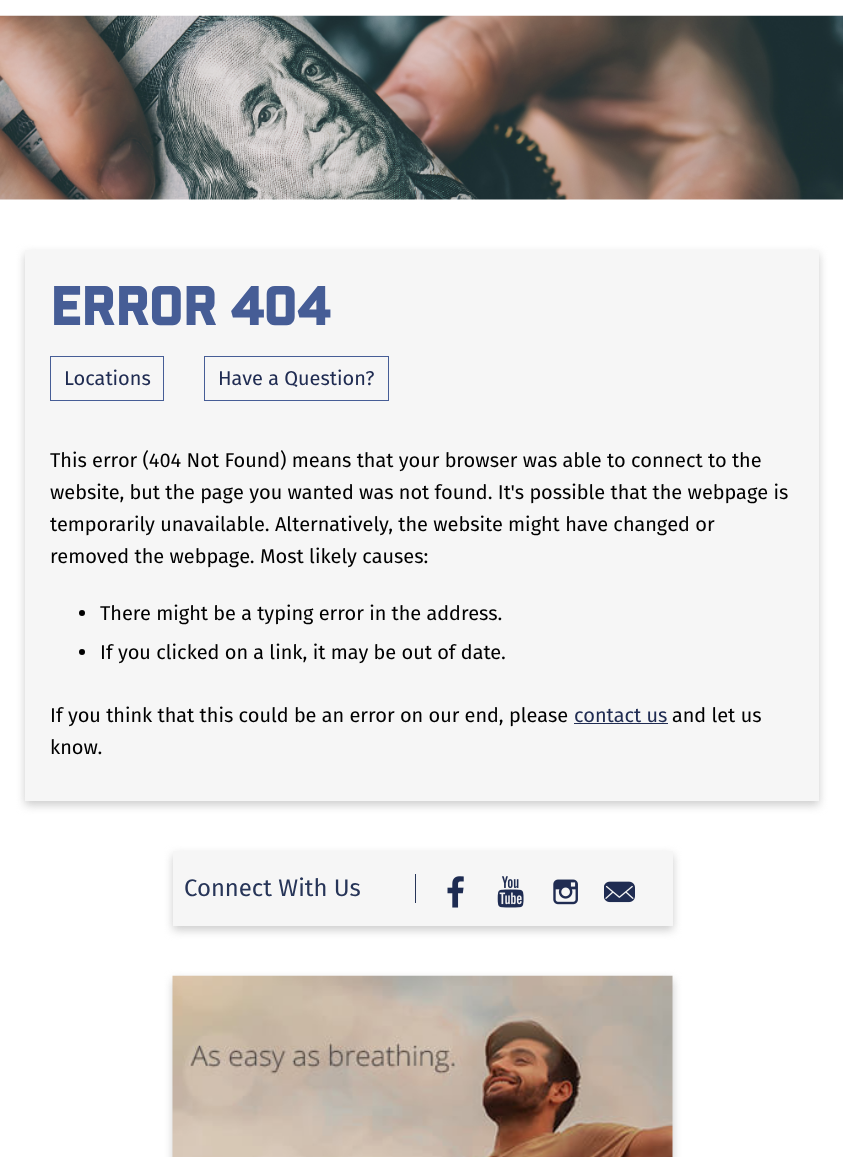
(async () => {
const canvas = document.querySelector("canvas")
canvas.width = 843
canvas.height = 1157
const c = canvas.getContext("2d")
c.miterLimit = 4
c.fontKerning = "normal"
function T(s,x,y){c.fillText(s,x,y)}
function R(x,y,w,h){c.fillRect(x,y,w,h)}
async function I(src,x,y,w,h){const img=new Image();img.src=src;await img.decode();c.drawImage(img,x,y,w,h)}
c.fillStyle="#fff"
R(0,0,843,1157)
await I("1.png",0,15,843,185)
c.fillStyle="#ccc"
c.filter="blur(5px)"
c.beginPath()
c.rect(25,254,794,551)
c.fill()
c.filter="none"
c.fillStyle="#f6f6f6"
R(25,250,794,551)
c.font="bold 52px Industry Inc"
c.fillStyle="#465d96"
T("Error 404",50,325)
c.strokeStyle="#465d96"
c.strokeRect(50.5,356.5,113,44)
c.font="20px Fira Sans"
c.fillStyle="#202c52"
T("Locations",64,385)
c.strokeRect(204.5,356.5,184,44)
T("Have a Question?",218,385)
c.fillStyle="#000"
T("This error (404 Not Found) means that your browser was able to connect to the",50,467)
T("website, but the page you wanted was not found. It's possible that the webpage is",50,499)
T("temporarily unavailable. Alternatively, the website might have changed or",50,531)
T("removed the webpage. Most likely causes:",50,563)
c.beginPath()
c.arc(82,613,3,0,7)
c.fill()
T("There might be a typing error in the address.",100,620)
c.beginPath()
c.arc(82,652,3,0,7)
c.fill()
T("If you clicked on a link, it may be out of date.",100,659)
T("If you think that this could be an error on our end, please",50,722)
c.fillStyle="#202c52"
T("contact us",574,722)
R(574,723,94,1)
c.fillStyle="#000"
T("and let us",672,722)
T("know.",50,754)
c.fillStyle="#ccc"
c.filter="blur(5px)"
c.beginPath()
c.rect(173,855,500,75)
c.fill()
c.filter="none"
c.fillStyle="#f6f6f6"
R(173,851,500,75)
c.fillStyle="#273558"
R(415,874,1,29)
c.font="24px Fira Sans"
T("Connect With Us",184,896)
await I("2.png",447,876,17,32)
await I("3.png",497,876,27,32)
await I("4.png",553,879,25,26)
await I("5.png",604,881,31,22)
c.fillStyle="#ccc"
c.filter="blur(5px)"
c.beginPath()
c.rect(173,980,500,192)
c.fill()
c.filter="none"
await I("6.png",172,975,501,182)
})()
